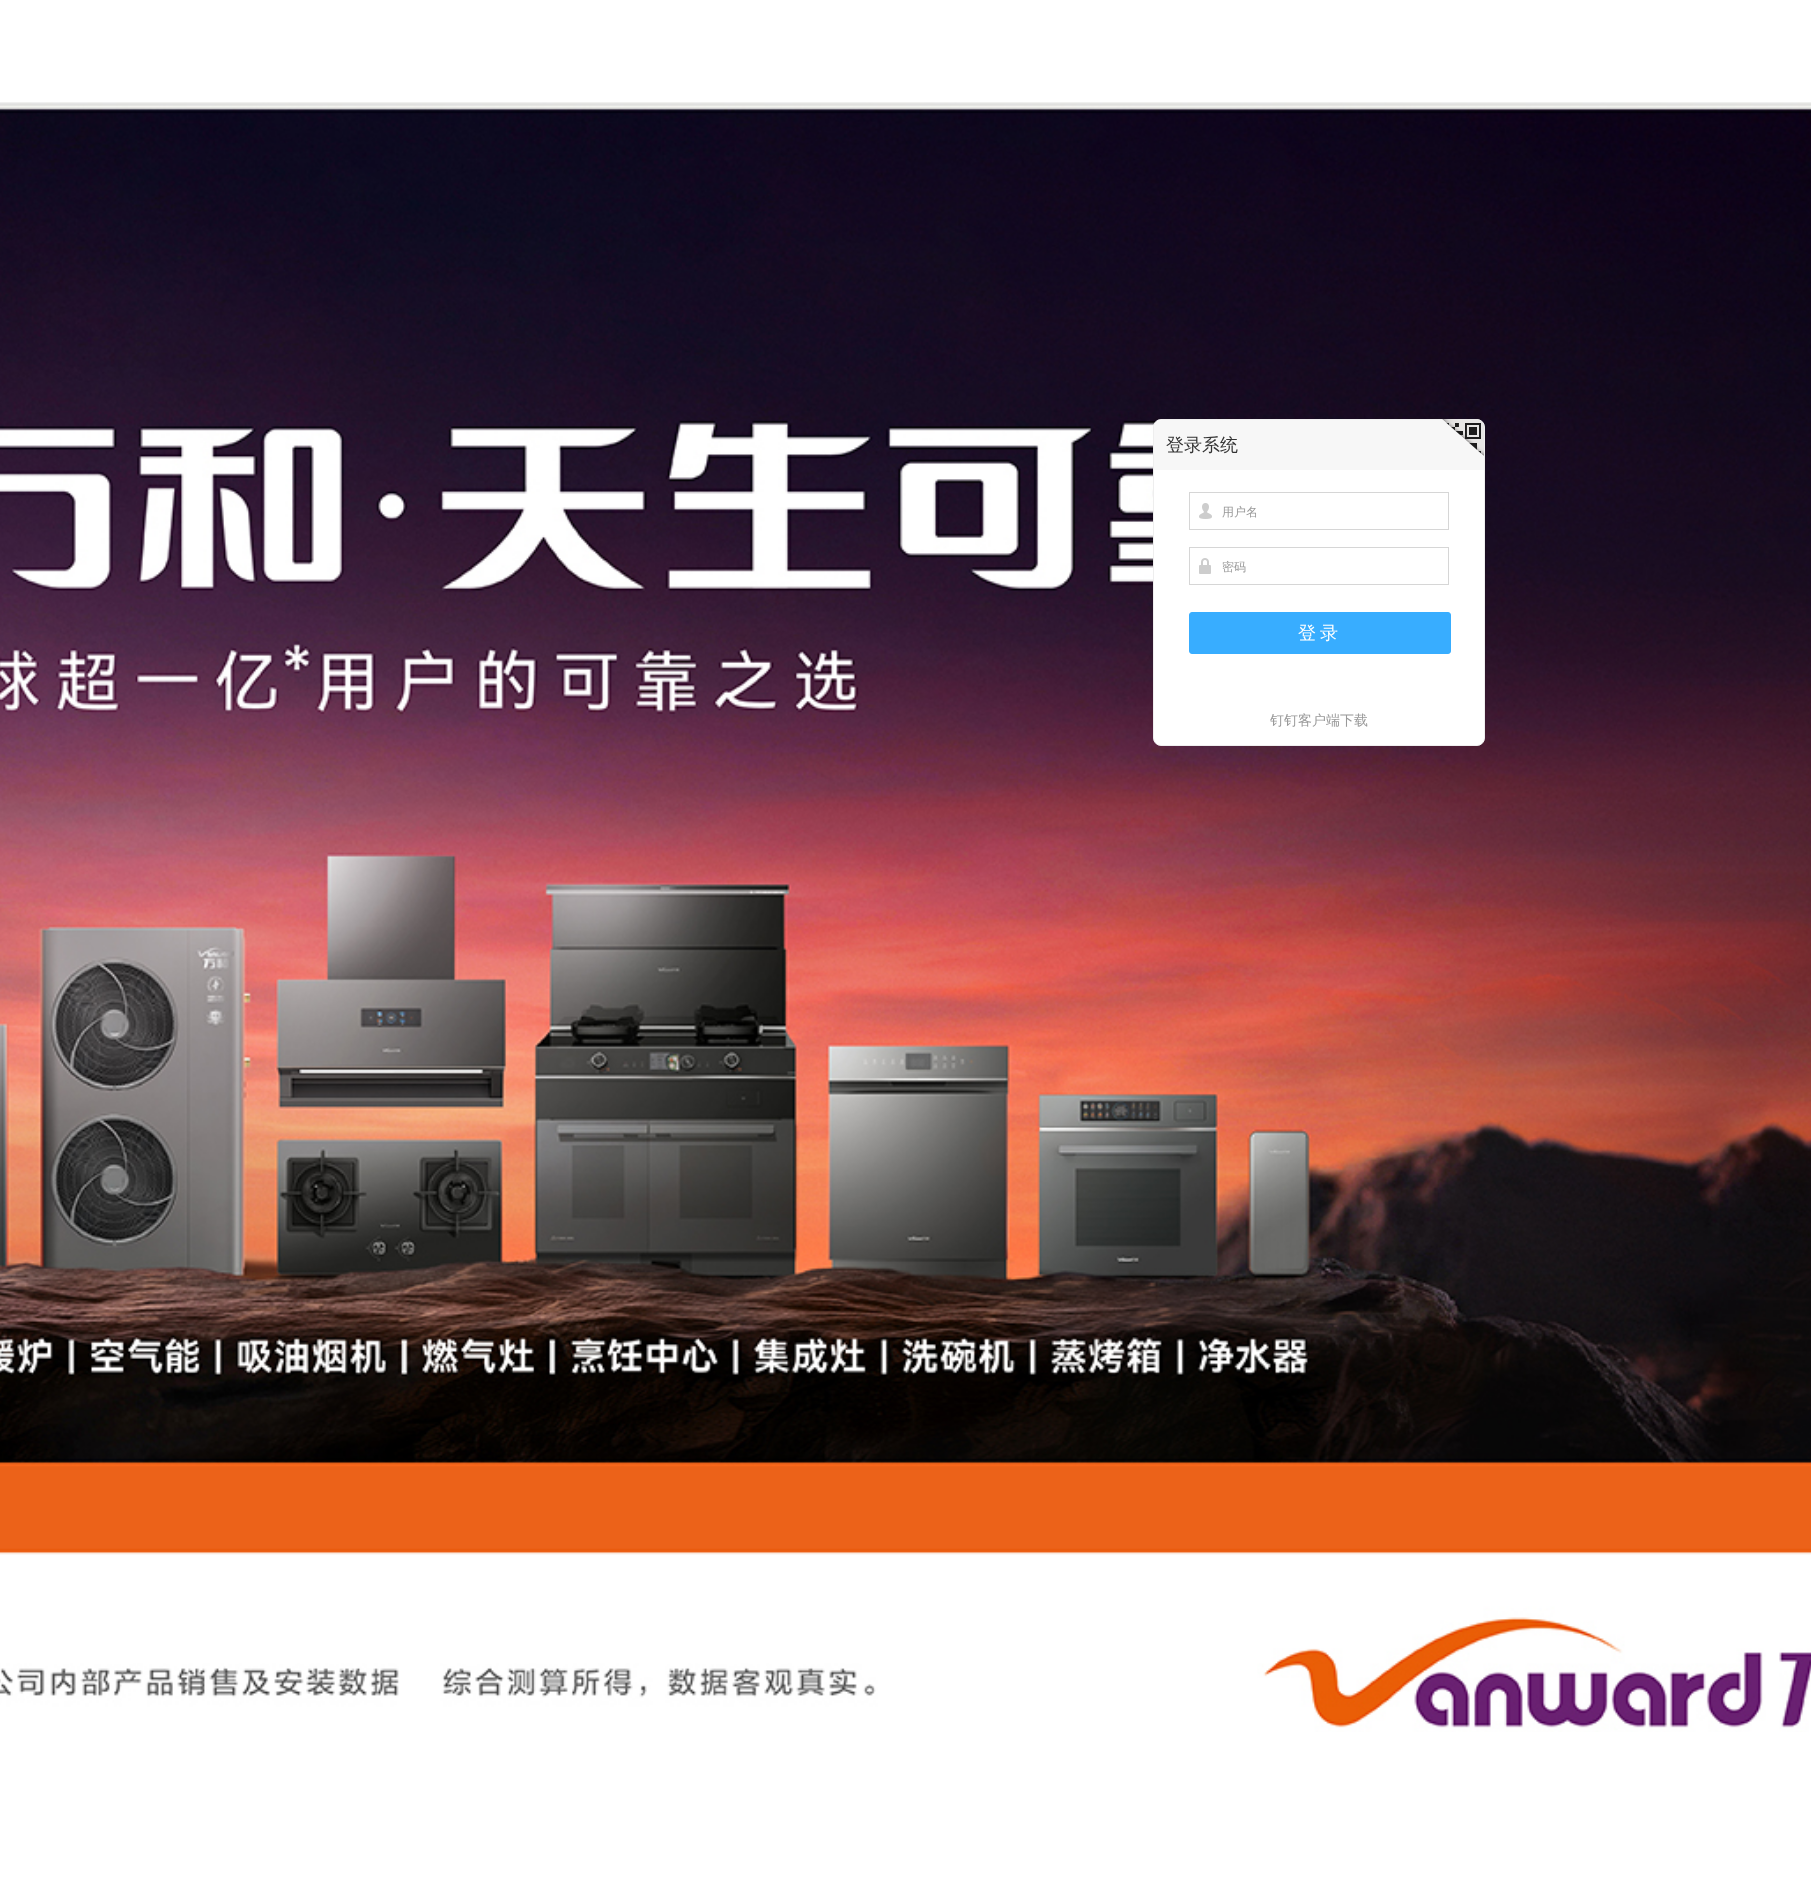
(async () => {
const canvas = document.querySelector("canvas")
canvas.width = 1811
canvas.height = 1903
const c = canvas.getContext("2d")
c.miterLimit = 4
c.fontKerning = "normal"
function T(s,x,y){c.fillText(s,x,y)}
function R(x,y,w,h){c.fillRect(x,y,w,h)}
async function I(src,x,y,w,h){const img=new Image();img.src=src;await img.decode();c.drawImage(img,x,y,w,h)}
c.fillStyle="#fff"
R(0,0,1811,1903)
await I("1.png",0,102,1811,1630)
c.beginPath()
c.roundRect(1153.5,419.5,331,326,7.5)
c.fill()
c.strokeStyle="#eee"
c.stroke()
c.fillStyle="#f7f7f7"
c.beginPath()
c.roundRect(1154,420,330,50,[8,8,0,0])
c.fill()
c.font="500 18px WenQuanYi Zen Hei"
c.fillStyle="#333"
T("登录系统",1166,451)
await I("2.png",1442,419,42,37)
c.strokeStyle="#d6d6d6"
c.strokeRect(1189.5,492.5,259,37)
await I("3.png",1199,503,13,16)
c.font="500 12px WenQuanYi Zen Hei"
c.fillStyle="#999"
T("用户名",1222,516)
c.strokeRect(1189.5,547.5,259,37)
await I("4.png",1199,558,12,16)
T("密码",1222,571)
c.fillStyle="#38adff"
c.beginPath()
c.roundRect(1189.5,612.5,261,41,2.5)
c.fill()
c.strokeStyle="#38adff"
c.stroke()
c.letterSpacing="4px"
c.font="500 18px WenQuanYi Zen Hei"
c.fillStyle="#fff"
T("登录",1298,639)
c.letterSpacing="0px"
c.font="500 14px WenQuanYi Zen Hei"
c.fillStyle="#999"
T("钉钉客户端下载",1270,725)
})()
